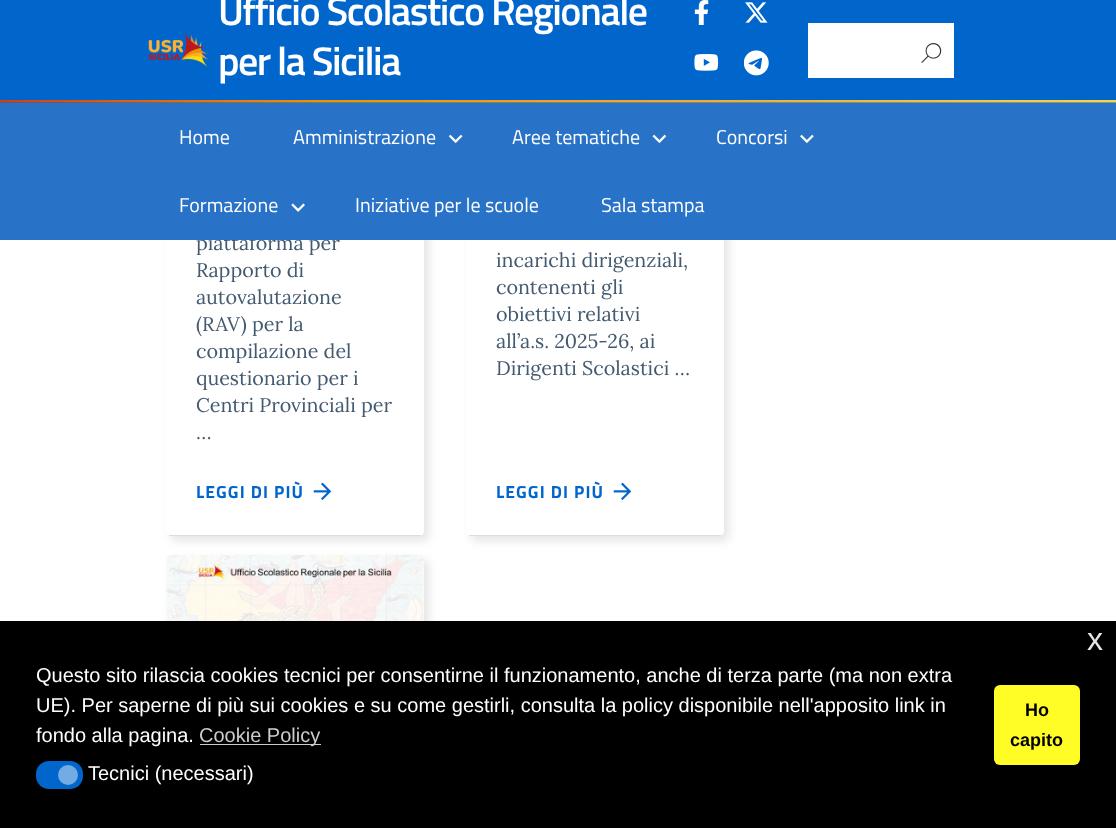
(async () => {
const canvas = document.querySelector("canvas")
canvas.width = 1116
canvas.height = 828
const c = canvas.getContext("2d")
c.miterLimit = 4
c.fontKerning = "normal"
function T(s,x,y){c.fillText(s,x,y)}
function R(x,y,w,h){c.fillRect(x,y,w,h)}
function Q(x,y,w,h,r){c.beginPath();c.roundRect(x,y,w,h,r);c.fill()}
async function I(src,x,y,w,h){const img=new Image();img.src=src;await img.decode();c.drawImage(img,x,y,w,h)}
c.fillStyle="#fff"
R(0,0,1116,828)
c.fillStyle="#0000001a"
c.filter="blur(5px)"
c.beginPath()
c.roundRect(171,-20,258,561,5)
c.fill()
c.filter="none"
c.fillStyle="#fff"
Q(166,-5,258,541,5)
c.fillStyle="#0000001a"
c.filter="blur(5px)"
c.beginPath()
c.roundRect(471,-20,258,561,5)
c.fill()
c.filter="none"
c.fillStyle="#fff"
Q(466,-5,258,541,5)
c.fillStyle="#06c"
R(0,0,1116,100)
await I("1.png",148,33,61,34)
c.letterSpacing="-1.5px"
c.font="600 40px Titillium Web"
c.fillStyle="#fff"
T("Ufficio Scolastico Regionale",218,25)
T("per la Sicilia",218,75)
await I("2.png",694,0,15,25)
await I("3.png",745,2,23,21)
await I("4.png",694,54,25,17)
await I("5.png",744,50,25,26)
R(808,23,146,55)
await I("6.png",921,43,21,20)
c.fillStyle="#06c"
R(0,102,1116,1)
await I("7.png",0,100,1116,3)
c.letterSpacing="0px"
c.font="19.75px Lora"
c.fillStyle="#435a70"
T("piattaforma per",196,250)
c.fillStyle="#2872c7"
R(0,103,1116,137)
c.font="20px Titillium Web"
c.fillStyle="#fff"
T("Home",179,144)
T("Amministrazione",293,144)
await I("8.png",448,134,15,10)
T("Aree tematiche",512,144)
await I("9.png",652,134,15,10)
T("Concorsi",716,144)
await I("10.png",800,134,14,10)
T("Formazione",179,212)
await I("11.png",291,203,14,9)
T("Iniziative per le scuole",355,212)
T("Sala stampa",601,212)
c.fillStyle="#ddd"
R(169,535,252,1)
c.font="19.75px Lora"
c.fillStyle="#435a70"
T("Rapporto di",196,277)
T("autovalutazione",196,304)
T("(RAV) per la",196,331)
T("compilazione del",196,358)
T("questionario per i",196,385)
T("Centri Provinciali per",196,412)
T("…",196,439)
c.letterSpacing="1.1px"
c.font="bold 17.5px Titillium Web"
c.fillStyle="#06c"
T("LEGGI DI PIÙ",196,498)
await I("12.png",313,482,19,18)
c.fillStyle="#ddd"
R(469,535,252,1)
c.letterSpacing="0px"
c.font="19.75px Lora"
c.fillStyle="#435a70"
T("incarichi dirigenziali,",496,267)
T("contenenti gli",496,294)
T("obiettivi relativi",496,321)
T("all’a.s. 2025-26, ai",496,348)
T("Dirigenti Scolastici …",496,375)
c.letterSpacing="1.1px"
c.font="bold 17.5px Titillium Web"
c.fillStyle="#06c"
T("LEGGI DI PIÙ",496,498)
await I("12.png",613,482,19,18)
c.fillStyle="#0000001a"
c.filter="blur(5px)"
c.beginPath()
c.roundRect(171,560,258,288,5)
c.fill()
c.filter="none"
c.fillStyle="#fff"
Q(166,555,258,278,5)
await I("13.png",166,555,258,66)
c.fillStyle="#000"
R(0,621,1116,207)
c.letterSpacing="0px"
c.font="32px Liberation Sans"
c.fillStyle="#e6e6e6"
T("x",1087,650)
c.font="20px Liberation Sans"
c.fillStyle="#fff"
T("Questo sito rilascia cookies tecnici per consentirne il funzionamento, anche di terza parte (ma non extra",36,682)
T("UE). Per saperne di più sui cookies e su come gestirli, consulta la policy disponibile nell'apposito link in",36,712)
T("fondo alla pagina.",36,742)
c.fillStyle="#ccc"
R(200,744,121,1)
T("Cookie Policy",199,742)
c.fillStyle="#06c"
Q(36,761,47,28,13)
c.fillStyle="#73abe3"
c.beginPath()
c.arc(68,775,10,0,7)
c.fill()
c.fillStyle="#fff"
T("Tecnici (necessari)",88,780)
c.fillStyle="#fffc26"
Q(994,685,86,80,6)
c.font="bold 18px Liberation Sans"
c.fillStyle="#000"
T("Ho",1025,716)
T("capito",1010,746)
})()
